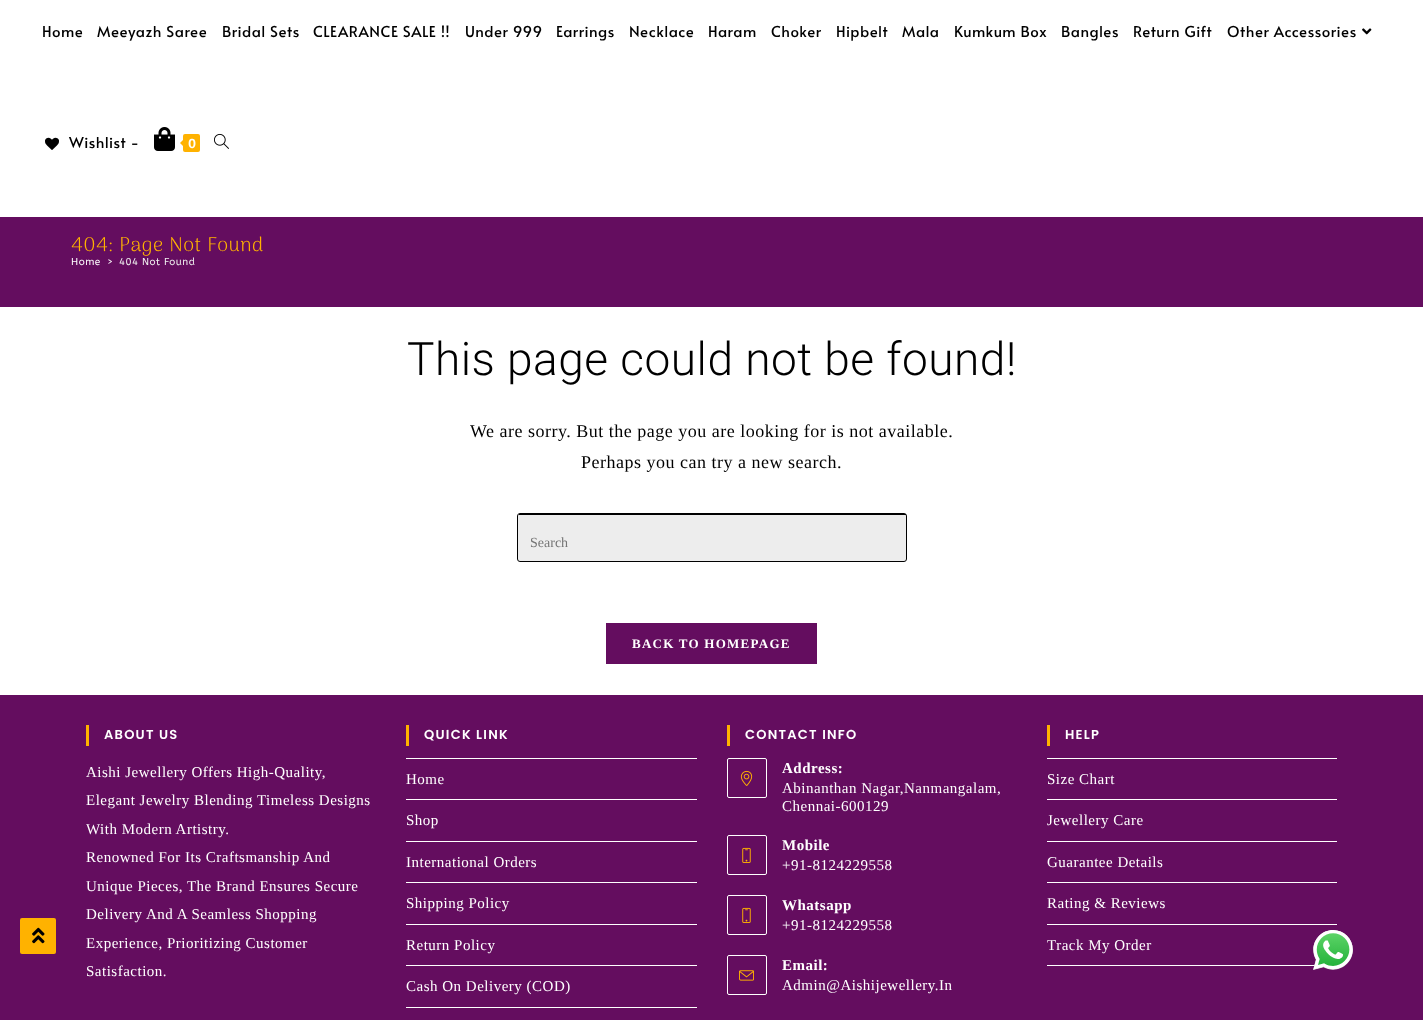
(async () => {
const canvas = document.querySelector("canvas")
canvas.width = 1423
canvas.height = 1020
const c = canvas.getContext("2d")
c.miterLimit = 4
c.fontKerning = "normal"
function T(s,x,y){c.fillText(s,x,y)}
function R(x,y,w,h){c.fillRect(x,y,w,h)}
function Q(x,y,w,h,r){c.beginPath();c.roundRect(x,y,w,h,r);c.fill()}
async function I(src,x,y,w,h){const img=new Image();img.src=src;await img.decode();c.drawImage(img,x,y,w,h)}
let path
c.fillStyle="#fff"
R(0,0,1423,1020)
c.fillStyle="#640d5f"
R(0,695,1423,325)
c.fillStyle="#ffb200"
Q(20,918,36,36,2)
await I("1.png",32,927,13,17)
c.letterSpacing="0.6px"
c.font="15px Alata"
c.fillStyle="#000"
T("Home",42,37)
T("Meeyazh Saree",97,37)
T("Bridal Sets",222,37)
T("CLEARANCE SALE !!",313,37)
T("Under 999",465,37)
T("Earrings",556,37)
T("Necklace",629,37)
T("Haram",708,37)
T("Choker",771,37)
T("Hipbelt",836,37)
T("Mala",902,37)
T("Kumkum Box",954,37)
T("Bangles",1061,37)
T("Return Gift",1133,37)
T("Other Accessories",1227,37)
await I("2.png",1362,28,10,7)
await I("3.png",45,137,14,13)
T("Wishlist -",69,148)
await I("4.png",154,127,21,24)
c.fillStyle="#ffb200"
Q(183,134,17,18,2)
path = new Path2D("M185 138v10l-5-5z")
c.fill(path)
c.letterSpacing="0px"
c.font="bold 12px Alata"
c.fillStyle="#fff"
T("0",188,148)
await I("5.png",214,133,15,16)
c.fillStyle="#640d5f"
R(0,217,1423,90)
c.letterSpacing="0.5px"
c.font="300 20px Arima"
c.fillStyle="#ffb200"
T("404: Page Not Found",71,251)
c.font="10px ABeeZee"
c.fillStyle="#fff"
T("Home",71,265)
T(">",107,265)
c.fillStyle="#efefef"
T("404 Not Found",119,265)
c.font="300 46px Roboto"
c.fillStyle="#000"
T("This page could not be found!",407,375)
c.font="18px Liberation Serif"
T("We are sorry. But the page you are looking for is not available.",470,437)
T("Perhaps you can try a new search.",581,468)
c.fillStyle="#ededed"
path = new Path2D("M520 515h384c1 0 2 0 2 1v43c0 1-1 2-2 2h-384c-1 0-2-1-2-2v-43c0-1 1-1 2-1z")
c.fill(path)
c.beginPath()
c.roundRect(517.5,513.5,389,48,2.5)
c.strokeStyle="#000"
c.stroke()
c.fillStyle="#000"
R(519,514,387,1)
c.letterSpacing="0px"
c.font="14px Liberation Serif"
c.fillStyle="#757575"
T("Search",530,547)
c.fillStyle="#640d5f"
R(606,623,211,41)
c.letterSpacing="1.25px"
c.font="bold 13px Liberation Serif"
c.fillStyle="#fff"
T("BACK TO HOMEPAGE",632,648)
c.fillStyle="#ffb200"
R(86,725,3,21)
c.font="600 13px Poppins"
c.fillStyle="#fff"
T("ABOUT US",104,739)
c.letterSpacing="0.5px"
c.font="15px Liberation Serif"
T("Aishi Jewellery Offers High-Quality,",86,777)
T("Elegant Jewelry Blending Timeless Designs",86,805)
T("With Modern Artistry.",86,834)
T("Renowned For Its Craftsmanship And",86,862)
T("Unique Pieces, The Brand Ensures Secure",86,891)
T("Delivery And A Seamless Shopping",86,919)
T("Experience, Prioritizing Customer",86,948)
T("Satisfaction.",86,976)
c.fillStyle="#ffb200"
R(406,725,3,21)
c.letterSpacing="1.25px"
c.font="600 13px Poppins"
c.fillStyle="#fff"
T("QUICK LINK",424,739)
R(406,758,291,1)
R(406,799,291,1)
c.letterSpacing="0.5px"
c.font="15px Liberation Serif"
T("Home",406,784)
R(406,841,291,1)
T("Shop",406,825)
R(406,882,291,1)
T("International Orders",406,867)
R(406,924,291,1)
T("Shipping Policy",406,908)
R(406,965,291,1)
T("Return Policy",406,950)
R(406,1007,291,1)
T("Cash On Delivery (COD)",406,991)
c.fillStyle="#ffb200"
R(727,725,3,21)
c.letterSpacing="1.25px"
c.font="600 13px Poppins"
c.fillStyle="#fff"
T("CONTACT INFO",745,739)
c.beginPath()
c.roundRect(727.5,758.5,39,39,1.5)
c.strokeStyle="#fff"
c.stroke()
await I("6.png",740,770,13,16)
c.letterSpacing="0.5px"
c.font="bold 15px Liberation Serif"
T("Address:",782,773)
c.font="15px Liberation Serif"
T("Abinanthan Nagar,Nanmangalam,",782,793)
T("Chennai-600129",782,811)
c.beginPath()
c.roundRect(727.5,835.5,39,39,1.5)
c.stroke()
await I("7.png",742,847,9,16)
c.font="bold 15px Liberation Serif"
T("Mobile",782,850)
c.font="15px Liberation Serif"
T("+91-8124229558",782,870)
c.beginPath()
c.roundRect(727.5,895.5,39,39,1.5)
c.stroke()
await I("7.png",742,907,9,16)
c.font="bold 15px Liberation Serif"
T("Whatsapp",782,910)
c.font="15px Liberation Serif"
T("+91-8124229558",782,930)
c.beginPath()
c.roundRect(727.5,955.5,39,39,1.5)
c.stroke()
await I("8.png",739,970,15,11)
c.font="bold 15px Liberation Serif"
T("Email:",782,970)
c.font="15px Liberation Serif"
T("Admin@Aishijewellery.In",782,990)
c.fillStyle="#ffb200"
R(1047,725,3,21)
c.letterSpacing="1.25px"
c.font="600 13px Poppins"
c.fillStyle="#fff"
T("HELP",1065,739)
R(1047,758,290,1)
R(1047,799,290,1)
c.letterSpacing="0.5px"
c.font="15px Liberation Serif"
T("Size Chart",1047,784)
R(1047,841,290,1)
T("Jewellery Care",1047,825)
R(1047,882,290,1)
T("Guarantee Details",1047,867)
R(1047,924,290,1)
T("Rating & Reviews",1047,908)
R(1047,965,268,1)
T("Track My Order",1047,950)
await I("9.png",1313,930,40,40)
})()
